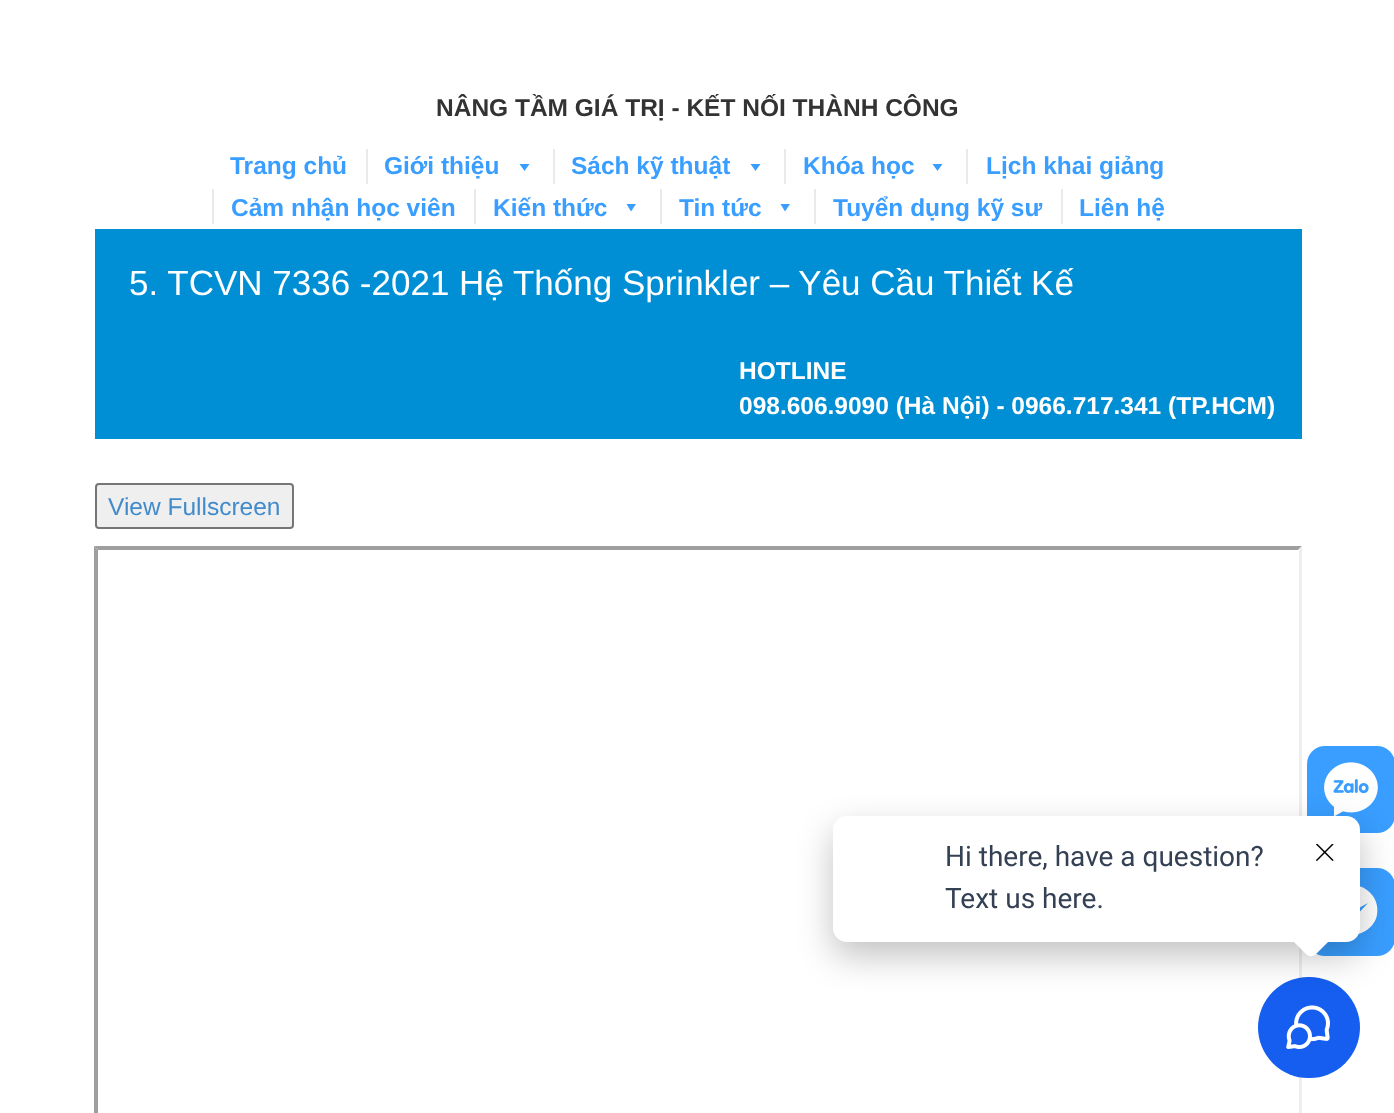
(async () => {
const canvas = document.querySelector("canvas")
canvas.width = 1394
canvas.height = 1113
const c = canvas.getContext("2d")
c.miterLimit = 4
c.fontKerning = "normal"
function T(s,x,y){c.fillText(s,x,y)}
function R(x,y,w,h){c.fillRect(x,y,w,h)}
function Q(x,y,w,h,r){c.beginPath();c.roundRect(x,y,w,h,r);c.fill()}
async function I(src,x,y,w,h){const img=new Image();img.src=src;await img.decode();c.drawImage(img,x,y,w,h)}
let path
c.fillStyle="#fff"
R(0,0,1394,1113)
c.font="bold 24.5px Liberation Sans"
c.fillStyle="#333"
T("NÂNG TẦM GIÁ TRỊ - KẾT NỐI THÀNH CÔNG",436,116)
c.fillStyle="#399eff"
T("Trang chủ",230,174)
c.fillStyle="#eaeaea"
R(366,149,2,35)
c.fillStyle="#399eff"
T("Giới thiệu",384,174)
path = new Path2D("M529.5 164l-5 7l-5-7z")
c.fill(path)
c.fillStyle="#eaeaea"
R(553,149,2,35)
c.fillStyle="#399eff"
T("Sách kỹ thuật",571,174)
path = new Path2D("M760.5 164l-5 7l-5-7z")
c.fill(path)
c.fillStyle="#eaeaea"
R(784,149,2,35)
c.fillStyle="#399eff"
T("Khóa học",803,174)
path = new Path2D("M942.5 164l-5 7l-5-7z")
c.fill(path)
c.fillStyle="#eaeaea"
R(966,149,2,35)
c.fillStyle="#399eff"
T("Lịch khai giảng",986,174)
c.fillStyle="#eaeaea"
R(212,189,2,35)
c.fillStyle="#399eff"
T("Cảm nhận học viên",231,216)
c.fillStyle="#eaeaea"
R(474,189,2,35)
c.fillStyle="#399eff"
T("Kiến thức",493,216)
path = new Path2D("M636 204l-5 7.5l-4.5-7.5z")
c.fill(path)
c.fillStyle="#eaeaea"
R(660,189,2,35)
c.fillStyle="#399eff"
T("Tin tức",679,216)
path = new Path2D("M790 204l-5 7.5l-4.5-7.5z")
c.fill(path)
c.fillStyle="#eaeaea"
R(814,189,2,35)
c.fillStyle="#399eff"
T("Tuyển dụng kỹ sư",833,216)
c.fillStyle="#eaeaea"
R(1061,189,2,35)
c.fillStyle="#399eff"
T("Liên hệ",1079,216)
c.fillStyle="#008fd5"
R(95,229,1207,210)
c.font="35px Liberation Sans"
c.fillStyle="#fff"
T("5. TCVN 7336 -2021 Hệ Thống Sprinkler – Yêu Cầu Thiết Kế",129,295)
c.font="bold 24.5px Liberation Sans"
T("HOTLINE",739,379)
T("098.606.9090 (Hà Nội) - 0966.717.341 (TP.HCM)",739,414)
c.fillStyle="#efefef"
c.beginPath()
c.roundRect(96,484,197,44,3)
c.fill()
c.strokeStyle="#767676"
c.lineWidth=2
c.stroke()
c.font="24.5px Liberation Sans"
c.fillStyle="#428bca"
T("View Fullscreen",108,515)
c.fillStyle="#9f9f9f"
path = new Path2D("M94 546h1208l-4 4h-1200z")
c.fill(path)
path = new Path2D("M94 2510v-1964l4 4v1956z")
c.fill(path)
c.fillStyle="#eee"
path = new Path2D("M1302 546v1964l-4-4v-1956z")
c.fill(path)
c.fillStyle="#fff"
R(1298,550,1,563)
c.fillStyle="#155eef"
Q(1258,977,102,101,50.5)
await I("2.png",1286,1005,44,44)
c.fillStyle="#399eff"
Q(1307,746,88,87,18)
await I("3.png",1324,762,54,54)
Q(1307,868,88,88,18)
c.fillStyle="#fff"
path = new Path2D("M1334 939v-10c-12-9-13-27-2-37c6-5 14-8 21-7c15 1 27 14 24 30c-3 15-20 23-34 19zm13-28l7 7l14-15l-13 7l-7-7l-14 15z")
c.fill(path)
c.fillStyle="#0000003d"
c.filter="blur(17.5px)"
c.beginPath()
c.roundRect(833,830,527,126,14)
c.fill()
c.filter="none"
c.fillStyle="#fff"
Q(833,816,527,126,14)
c.font="28px Roboto"
c.fillStyle="#344054"
T("Hi there, have a question?",945,866)
T("Text us here.",945,908)
c.fillStyle="#fff"
path = new Path2D("M1316 915l15 15c2 2 2 7 0 9l-15 15c-3 3-7 3-10 0l-15-15c-3-2-3-7 0-9l15-15c3-3 7-3 10 0z")
c.fill(path)
await I("1.png",1316,844,18,17)
})()
